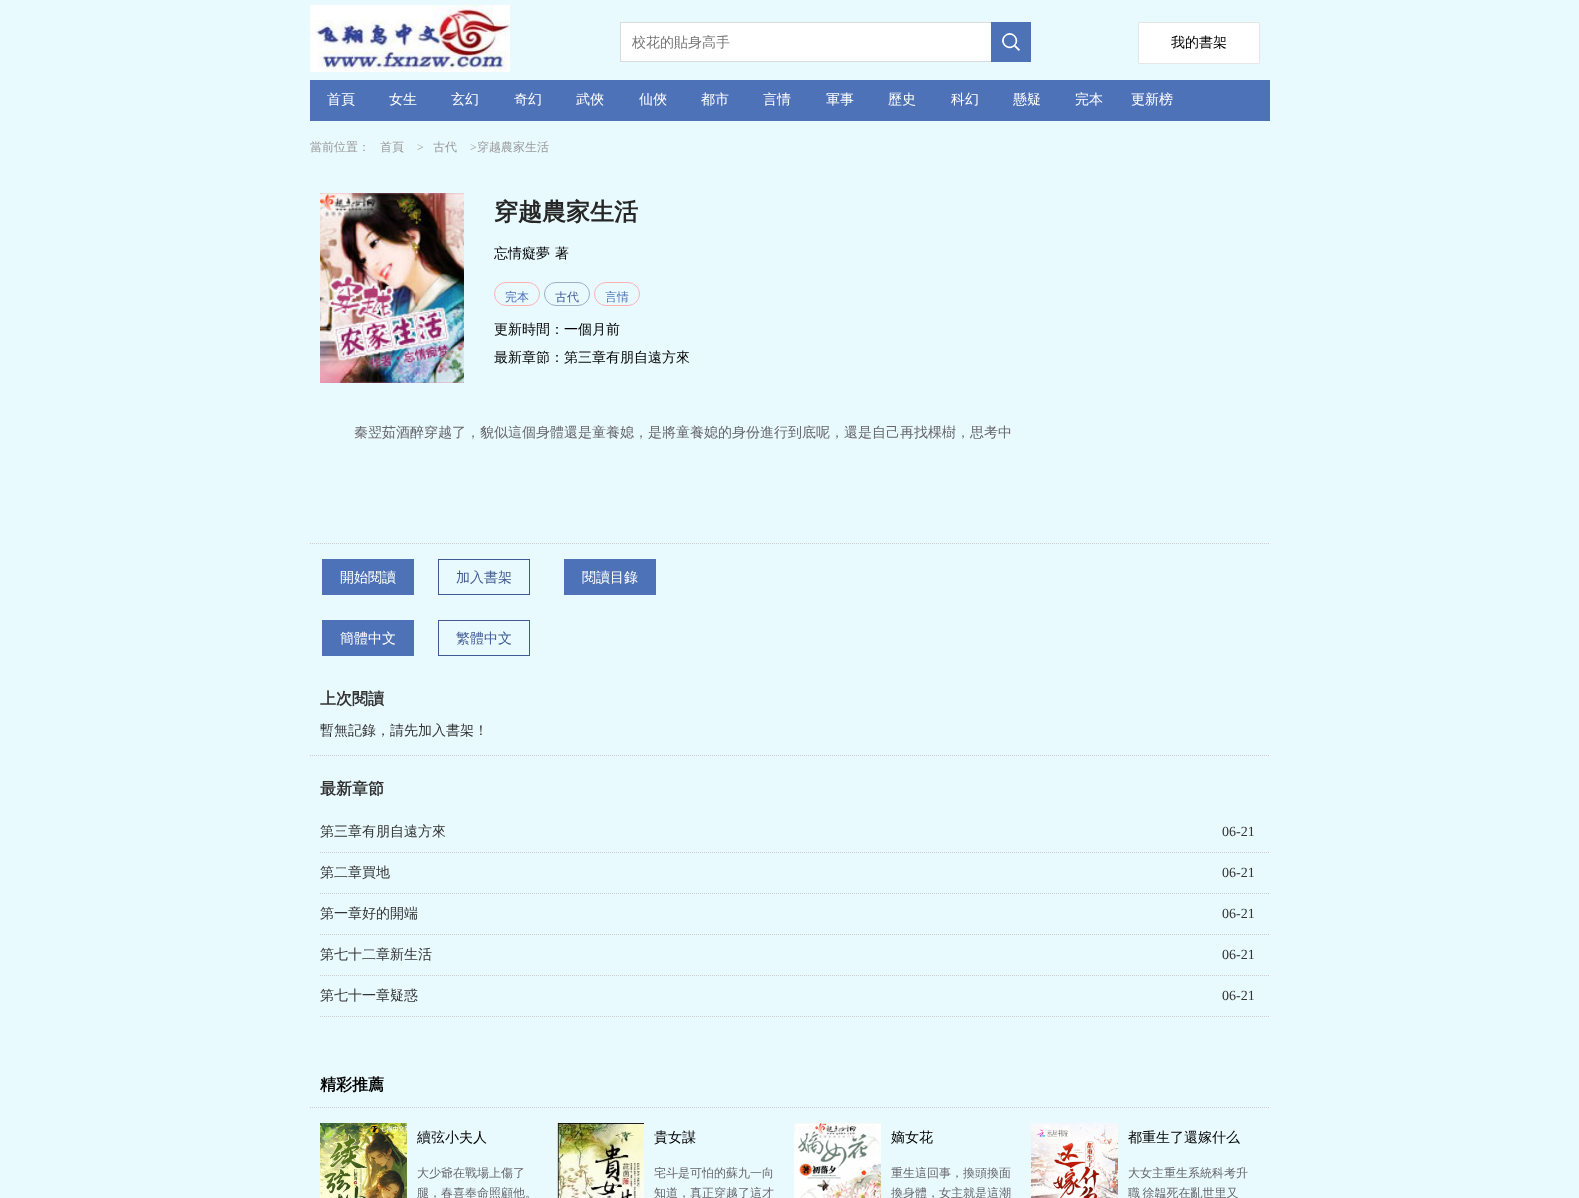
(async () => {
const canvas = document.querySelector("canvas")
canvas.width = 1579
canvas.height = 1198
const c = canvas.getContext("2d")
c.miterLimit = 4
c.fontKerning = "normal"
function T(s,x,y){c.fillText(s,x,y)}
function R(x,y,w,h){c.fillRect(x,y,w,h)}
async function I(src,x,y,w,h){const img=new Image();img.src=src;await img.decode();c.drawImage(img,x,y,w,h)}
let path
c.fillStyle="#e9faff"
R(0,0,1579,1198)
await I("1.png",310,5,200,67)
c.fillStyle="#fff"
R(621,23,370,38)
c.fillStyle="#dbdbdb"
R(620,22,371,1)
R(620,61,371,1)
R(620,22,1,40)
c.font="500 14px WenQuanYi Zen Hei"
c.fillStyle="#757575"
T("校花的貼身高手",632,47)
c.fillStyle="#4e72b8"
R(991,22,40,40)
await I("2.png",1002,33,18,18)
c.fillStyle="#fff"
c.beginPath()
c.rect(1138.5,22.5,121,41)
c.fill()
c.strokeStyle="#e6e6e6"
c.stroke()
c.fillStyle="#000"
T("我的書架",1171,47)
c.fillStyle="#4e72b8"
R(310,80,960,41)
c.fillStyle="#fff"
T("首頁",327,104)
T("女生",389,104)
T("玄幻",451,104)
T("奇幻",514,104)
T("武俠",576,104)
T("仙俠",639,104)
T("都市",701,104)
T("言情",763,104)
T("軍事",826,104)
T("歷史",888,104)
T("科幻",951,104)
T("懸疑",1013,104)
T("完本",1075,104)
T("更新榜",1131,104)
c.font="500 12px WenQuanYi Zen Hei"
c.fillStyle="#999"
T("當前位置：",310,151)
T("首頁",380,151)
c.font="12px Liberation Serif"
T(">",417,151)
c.font="500 12px WenQuanYi Zen Hei"
T("古代",433,151)
c.font="12px Liberation Serif"
T(">",470,151)
c.font="500 12px WenQuanYi Zen Hei"
T("穿越農家生活",477,151)
await I("3.png",320,193,144,190)
c.font="bold 24px WenQuanYi Zen Hei"
c.fillStyle="#262626"
T("穿越農家生活",494,220)
c.save()
c.beginPath()
c.rect(494,241,564,28)
c.clip()
c.font="500 14px WenQuanYi Zen Hei"
c.fillStyle="#000"
T("忘情癡夢",494,258)
c.restore()
c.font="500 14px WenQuanYi Zen Hei"
c.fillStyle="#000"
T("著",555,258)
c.beginPath()
c.roundRect(494.5,282.5,45,23,11.5)
c.strokeStyle="#ffb0b4"
c.stroke()
c.font="500 12px WenQuanYi Zen Hei"
c.fillStyle="#4e72b8"
T("完本",505,301)
c.beginPath()
c.roundRect(544.5,282.5,45,23,11.5)
c.strokeStyle="#9fadc9"
c.stroke()
c.fillStyle="#3f5a93"
T("古代",555,301)
c.beginPath()
c.roundRect(594.5,282.5,45,23,11.5)
c.strokeStyle="#ffb0b4"
c.stroke()
c.fillStyle="#4e72b8"
T("言情",605,301)
c.font="500 14px WenQuanYi Zen Hei"
c.fillStyle="#000"
T("更新時間：一個月前",494,334)
T("最新章節：第三章有朋自遠方來",494,362)
path = new Path2D("M310 543.5h960")
c.strokeStyle="#ccc"
c.setLineDash([1,1])
c.stroke(path)
c.fillStyle="#66666b"
T("秦翌茹酒醉穿越了，貌似這個身體還是童養媳，是將童養媳的身份進行到底呢，還是自己再找棵樹，思考中",354,437)
c.fillStyle="#4e72b8"
R(322,559,92,36)
c.fillStyle="#fff"
T("開始閱讀",340,582)
c.strokeStyle="#3f5a93"
c.setLineDash([])
c.strokeRect(438.5,559.5,91,35)
c.fillStyle="#3f5a93"
T("加入書架",456,582)
c.fillStyle="#4e72b8"
R(564,559,92,36)
c.fillStyle="#fff"
T("閱讀目錄",582,582)
c.fillStyle="#4e72b8"
R(322,620,92,36)
c.fillStyle="#fff"
T("簡體中文",340,643)
c.strokeRect(438.5,620.5,91,35)
c.fillStyle="#3f5a93"
T("繁體中文",456,643)
path = new Path2D("M310 755.5h960")
c.strokeStyle="#ccc"
c.setLineDash([1,1])
c.stroke(path)
c.font="bold 16px WenQuanYi Zen Hei"
c.fillStyle="#333"
T("上次閱讀",320,704)
c.font="500 14px WenQuanYi Zen Hei"
T("暫無記錄，請先加入書架！",320,735)
c.font="bold 16px WenQuanYi Zen Hei"
T("最新章節",320,794)
path = new Path2D("M320 852.5h950")
c.stroke(path)
c.font="500 14px WenQuanYi Zen Hei"
T("第三章有朋自遠方來",320,836)
c.font="14px Liberation Serif"
T("06-21",1222,836)
path = new Path2D("M320 893.5h950")
c.stroke(path)
c.font="500 14px WenQuanYi Zen Hei"
T("第二章買地",320,877)
c.font="14px Liberation Serif"
T("06-21",1222,877)
path = new Path2D("M320 934.5h950")
c.stroke(path)
c.font="500 14px WenQuanYi Zen Hei"
T("第一章好的開端",320,918)
c.font="14px Liberation Serif"
T("06-21",1222,918)
path = new Path2D("M320 975.5h950")
c.stroke(path)
c.font="500 14px WenQuanYi Zen Hei"
T("第七十二章新生活",320,959)
c.font="14px Liberation Serif"
T("06-21",1222,959)
path = new Path2D("M320 1016.5h950")
c.stroke(path)
c.font="500 14px WenQuanYi Zen Hei"
T("第七十一章疑惑",320,1000)
c.font="14px Liberation Serif"
T("06-21",1222,1000)
path = new Path2D("M310 1107.5h960")
c.stroke(path)
c.font="bold 16px WenQuanYi Zen Hei"
c.fillStyle="#000"
T("精彩推薦",320,1090)
await I("4.png",320,1123,87,75)
c.save()
c.beginPath()
c.rect(417,1123,120,30)
c.clip()
c.font="500 14px WenQuanYi Zen Hei"
T("續弦小夫人",417,1142)
c.restore()
c.font="500 12px WenQuanYi Zen Hei"
c.fillStyle="#66666b"
T("大少爺在戰場上傷了",417,1177)
T("腿，春喜奉命照顧他。",417,1197)
await I("5.png",557,1123,87,75)
c.font="500 14px WenQuanYi Zen Hei"
c.fillStyle="#000"
T("貴女謀",654,1142)
c.font="500 12px WenQuanYi Zen Hei"
c.fillStyle="#66666b"
T("宅斗是可怕的蘇九一向",654,1177)
T("知道，真正穿越了這才",654,1197)
await I("6.png",794,1123,87,75)
c.font="500 14px WenQuanYi Zen Hei"
c.fillStyle="#000"
T("嫡女花",891,1142)
c.font="500 12px WenQuanYi Zen Hei"
c.fillStyle="#66666b"
T("重生這回事，換頭換面",891,1177)
c.save()
c.beginPath()
c.rect(891,1163,120,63)
c.clip()
T("換身體，女主就是這潮",891,1197)
c.restore()
await I("7.png",1031,1123,87,75)
c.font="500 14px WenQuanYi Zen Hei"
c.fillStyle="#000"
T("都重生了還嫁什么",1128,1142)
c.font="500 12px WenQuanYi Zen Hei"
c.fillStyle="#66666b"
T("大女主重生系統科考升",1128,1177)
c.save()
c.beginPath()
c.rect(1128,1163,120,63)
c.clip()
c.wordSpacing="-1px"
T("職 徐韞死在亂世里又",1128,1197)
c.restore()
})()
